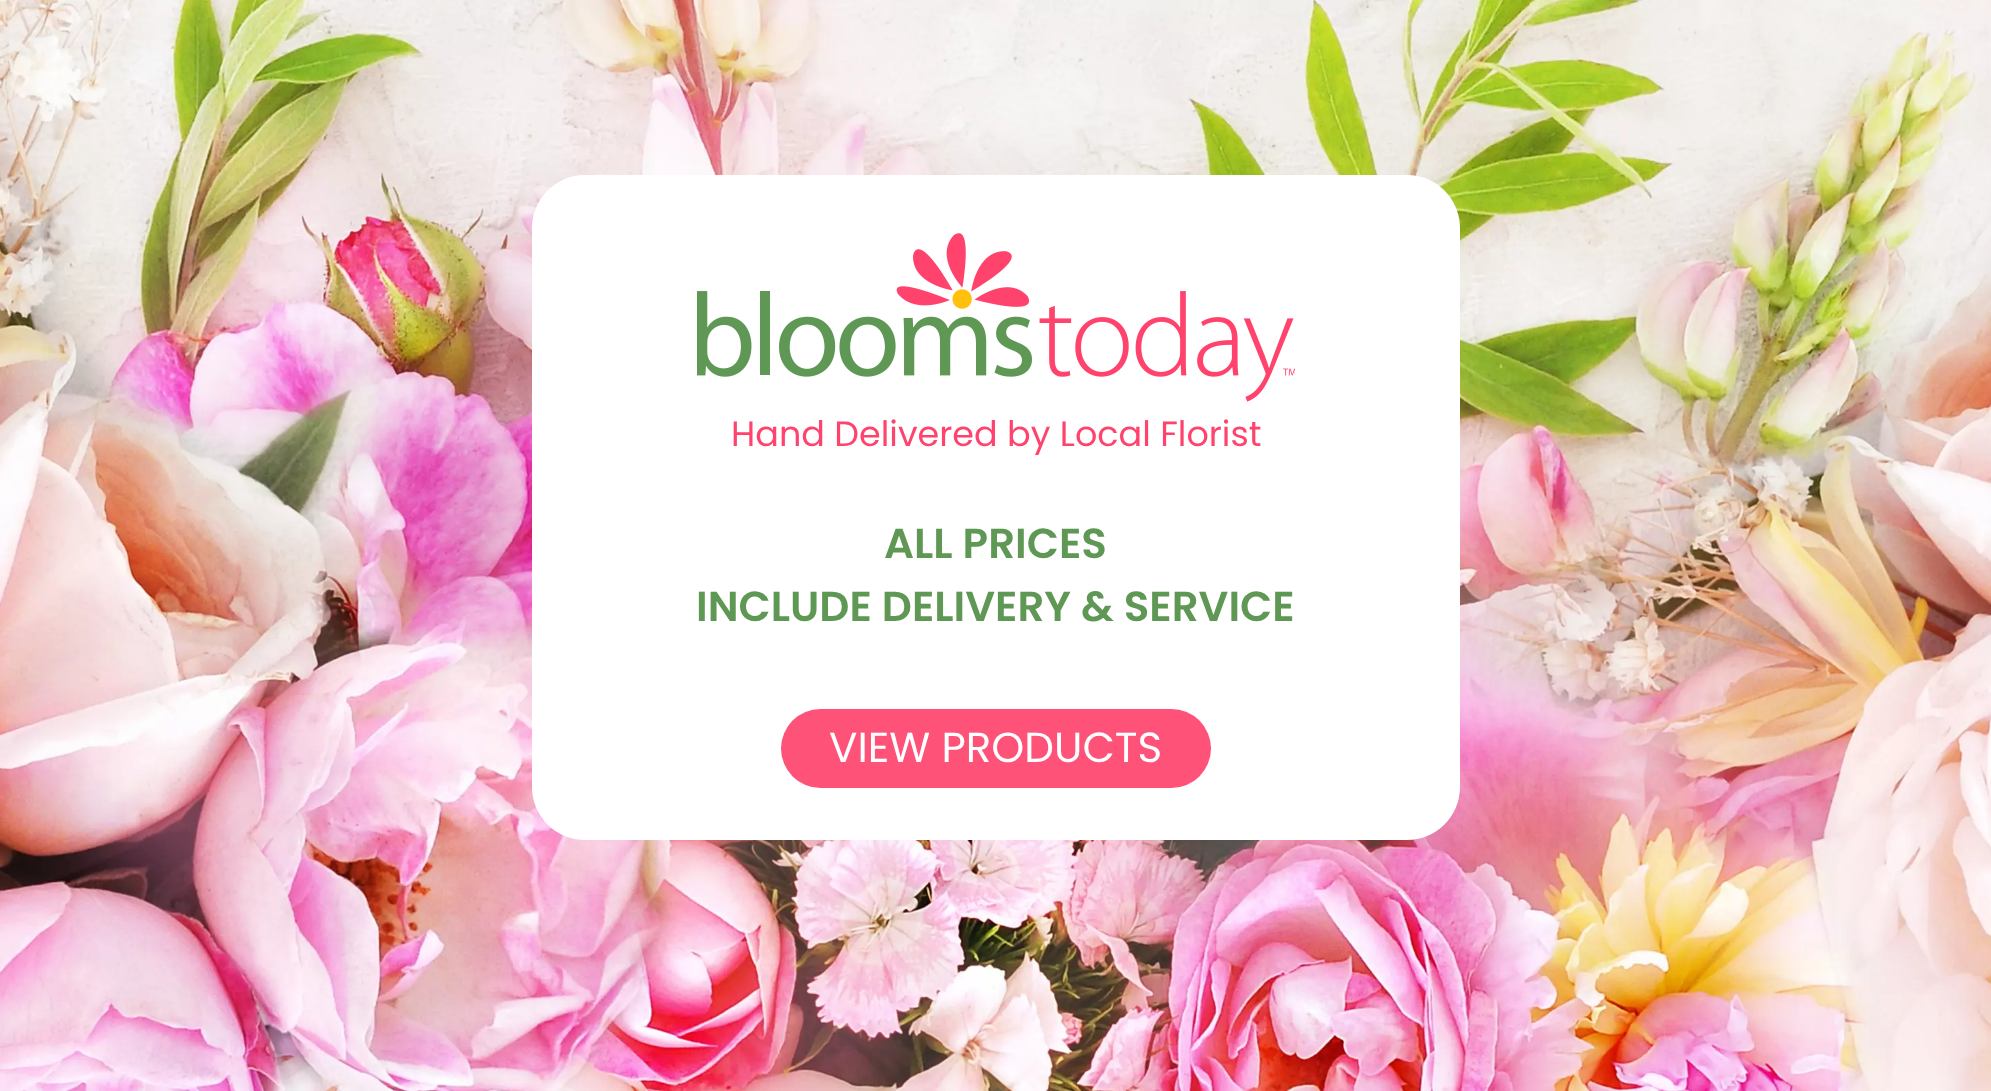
(async () => {
const canvas = document.querySelector("canvas")
canvas.width = 1991
canvas.height = 1091
const c = canvas.getContext("2d")
c.miterLimit = 4
c.fontKerning = "normal"
function T(s,x,y){c.fillText(s,x,y)}
function R(x,y,w,h){c.fillRect(x,y,w,h)}
function Q(x,y,w,h,r){c.beginPath();c.roundRect(x,y,w,h,r);c.fill()}
async function I(src,x,y,w,h){const img=new Image();img.src=src;await img.decode();c.drawImage(img,x,y,w,h)}
c.fillStyle="#fff"
R(0,0,1991,1091)
await I("1.png",0,0,1991,1091)
Q(532,175,928,665,53)
await I("2.png",697,233,598,169)
c.font="35px Poppins"
c.fillStyle="#ff436d"
T("Hand Delivered by Local Florist",731,446)
c.font="600 42px Poppins"
c.fillStyle="#5f9754"
T("ALL PRICES",884,558)
T("INCLUDE DELIVERY & SERVICE",696,621)
c.fillStyle="#ff5279"
Q(781,709,430,79,39.5)
c.font="42px Poppins"
c.fillStyle="#fff"
T("VIEW PRODUCTS",829,762)
})()
